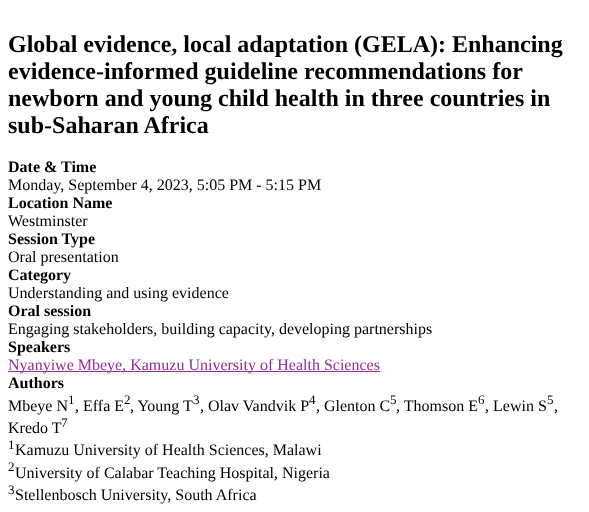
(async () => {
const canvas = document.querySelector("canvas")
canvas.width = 589
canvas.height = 512
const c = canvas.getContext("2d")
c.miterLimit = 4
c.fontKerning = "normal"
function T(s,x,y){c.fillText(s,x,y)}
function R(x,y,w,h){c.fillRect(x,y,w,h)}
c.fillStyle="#fff"
R(0,0,589,512)
c.font="bold 24px Liberation Serif"
c.fillStyle="#000"
T("Global evidence, local adaptation (GELA): Enhancing",8,52)
T("evidence-informed guideline recommendations for",8,79)
T("newborn and young child health in three countries in",8,106)
T("sub-Saharan Africa",8,133)
c.font="bold 16px Liberation Serif"
T("Date & Time",8,172)
c.font="16px Liberation Serif"
T("Monday, September 4, 2023, 5:05 PM - 5:15 PM",8,190)
c.font="bold 16px Liberation Serif"
T("Location Name",8,208)
c.font="16px Liberation Serif"
T("Westminster",8,226)
c.font="bold 16px Liberation Serif"
T("Session Type",8,244)
c.font="16px Liberation Serif"
T("Oral presentation",8,262)
c.font="bold 16px Liberation Serif"
T("Category",8,280)
c.font="16px Liberation Serif"
T("Understanding and using evidence",8,298)
c.font="bold 16px Liberation Serif"
T("Oral session",8,316)
c.font="16px Liberation Serif"
T("Engaging stakeholders, building capacity, developing partnerships",8,334)
c.font="bold 16px Liberation Serif"
T("Speakers",8,352)
c.fillStyle="#912d94"
R(8,371,372,1)
c.font="16px Liberation Serif"
T("Nyanyiwe Mbeye, Kamuzu University of Health Sciences",8,370)
c.font="bold 16px Liberation Serif"
c.fillStyle="#000"
T("Authors",8,388)
c.font="16px Liberation Serif"
T("Mbeye N",8,411)
c.font="13px Liberation Serif"
T("1",68,404)
c.font="16px Liberation Serif"
T(", Effa E",75,411)
c.font="13px Liberation Serif"
T("2",124,404)
c.font="16px Liberation Serif"
T(", Young T",130,411)
c.font="13px Liberation Serif"
T("3",193,404)
c.font="16px Liberation Serif"
T(", Olav Vandvik P",200,411)
c.font="13px Liberation Serif"
T("4",309,404)
c.font="16px Liberation Serif"
T(", Glenton C",316,411)
c.font="13px Liberation Serif"
T("5",390,404)
c.font="16px Liberation Serif"
T(", Thomson E",396,411)
c.font="13px Liberation Serif"
T("6",478,404)
c.font="16px Liberation Serif"
T(", Lewin S",485,411)
c.font="13px Liberation Serif"
T("5",547,404)
c.font="16px Liberation Serif"
T(",",554,411)
T("Kredo T",8,433)
c.font="13px Liberation Serif"
T("7",61,427)
T("1",8,449)
c.font="16px Liberation Serif"
T("Kamuzu University of Health Sciences, Malawi",15,455)
c.font="13px Liberation Serif"
T("2",8,471)
c.font="16px Liberation Serif"
T("University of Calabar Teaching Hospital, Nigeria",15,478)
c.font="13px Liberation Serif"
T("3",8,494)
c.font="16px Liberation Serif"
T("Stellenbosch University, South Africa",15,500)
})()
